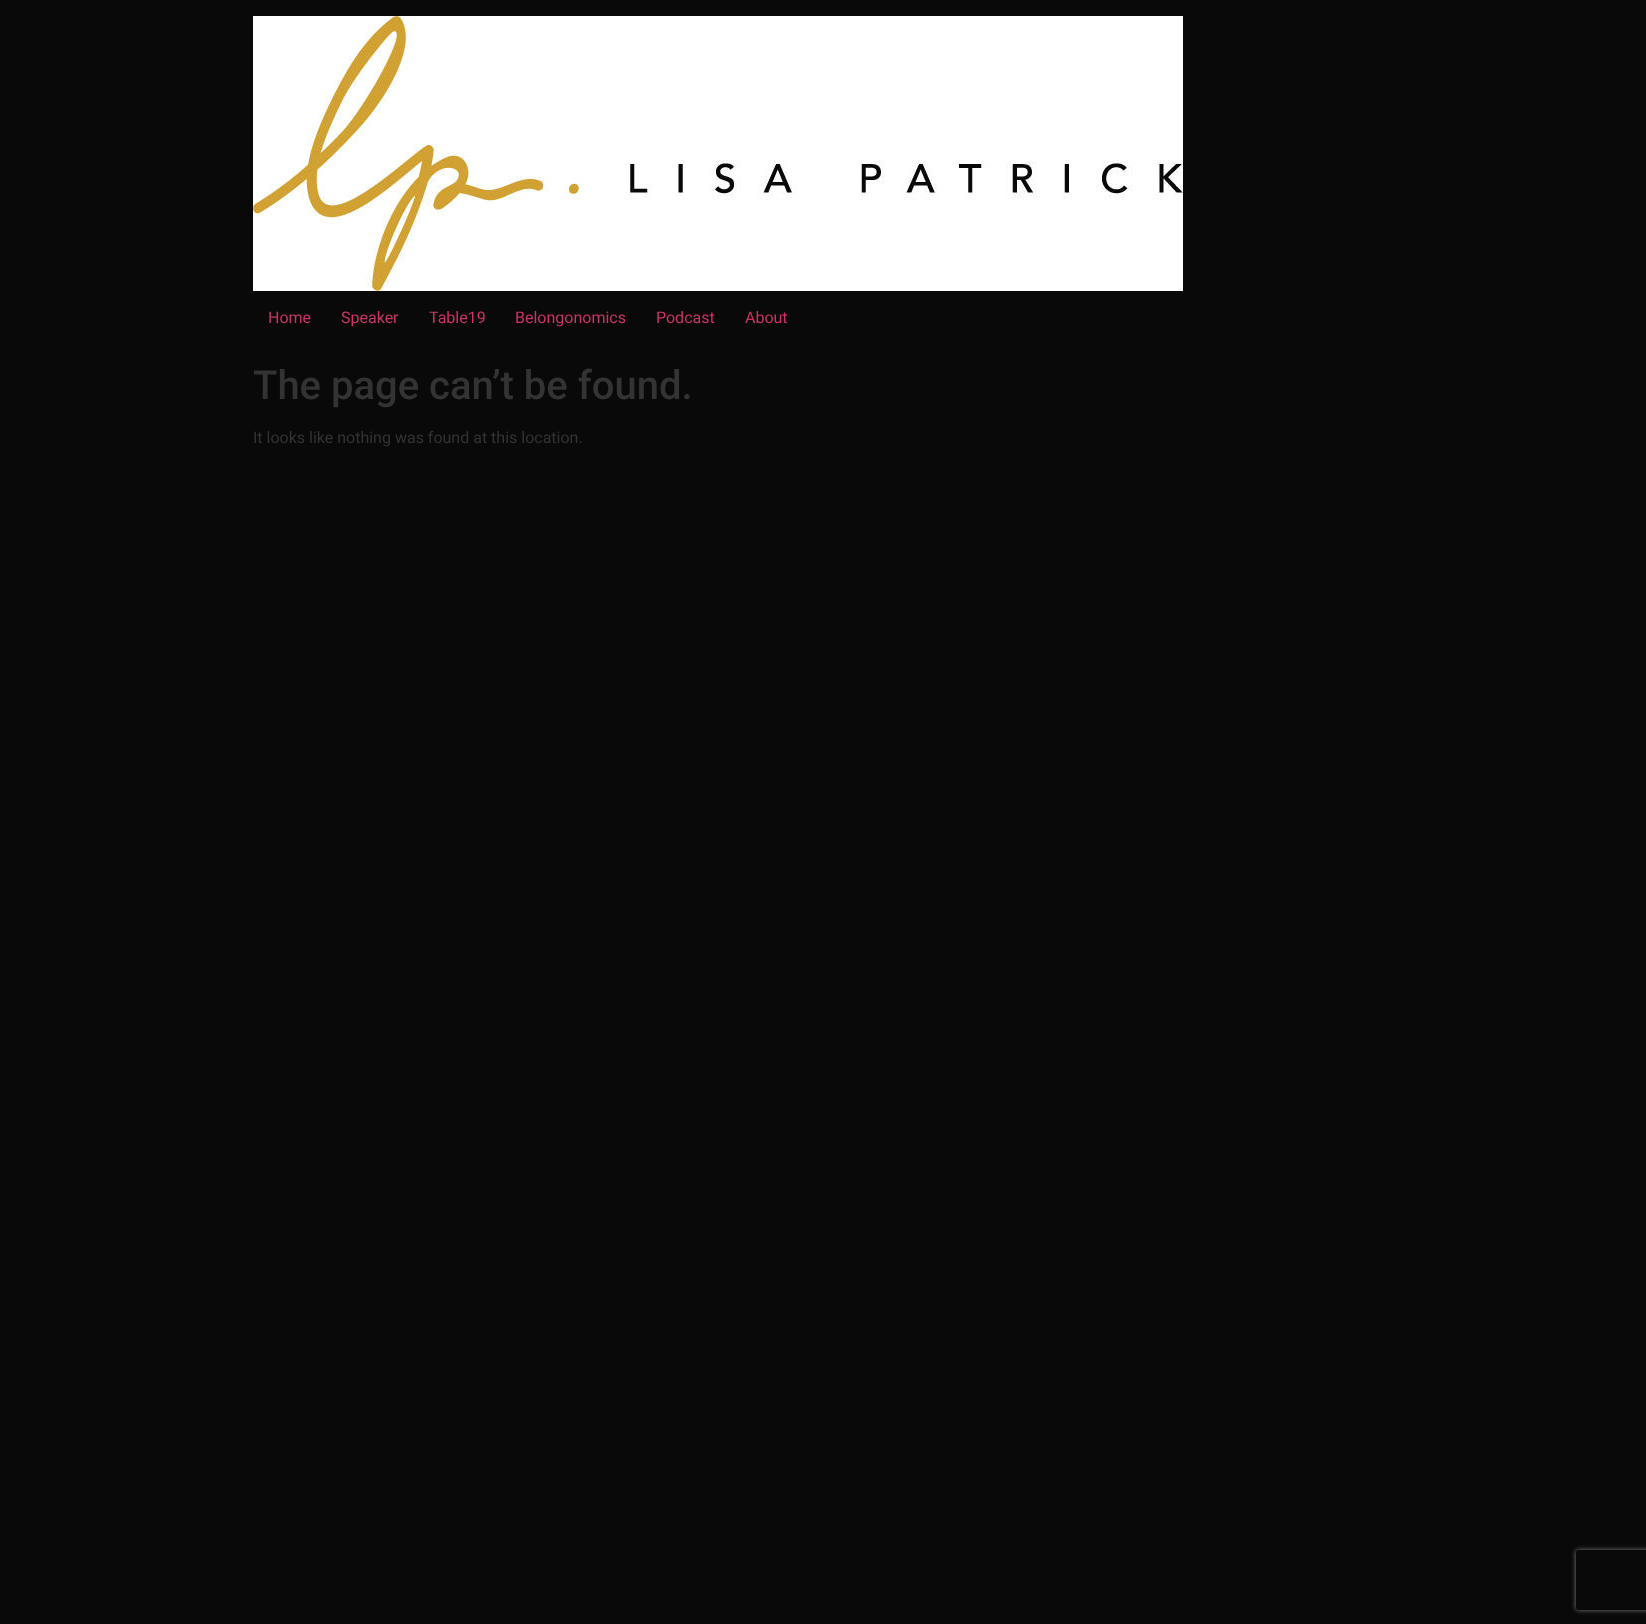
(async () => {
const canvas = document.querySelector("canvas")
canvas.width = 1646
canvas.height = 1624
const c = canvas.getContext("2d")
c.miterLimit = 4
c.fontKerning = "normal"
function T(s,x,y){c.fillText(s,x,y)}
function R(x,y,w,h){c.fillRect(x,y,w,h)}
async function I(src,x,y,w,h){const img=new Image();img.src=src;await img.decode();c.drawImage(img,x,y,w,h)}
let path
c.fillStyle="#090909"
R(0,0,1646,1624)
await I("1.png",253,16,930,275)
c.font="16px Roboto"
c.fillStyle="#c36"
T("Home",268,323)
T("Speaker",341,323)
T("Table19",429,323)
T("Belongonomics",515,323)
T("Podcast",656,323)
T("About",745,323)
c.font="500 40px Roboto"
c.fillStyle="#333"
T("The page can’t be found.",253,399)
c.font="16px Roboto"
T("It looks like nothing was found at this location.",253,443)
c.save()
path = new Path2D("M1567 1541h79v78h-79zm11 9h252c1 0 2 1 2 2v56c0 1-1 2-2 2h-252c-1 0-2-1-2-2v-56c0-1 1-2 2-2z")
c.clip(path,"evenodd")
c.fillStyle="#808080"
c.filter="blur(2.5px)"
c.beginPath()
c.roundRect(1576,1550,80,60,2)
c.fill()
c.filter="none"
c.restore()
})()
